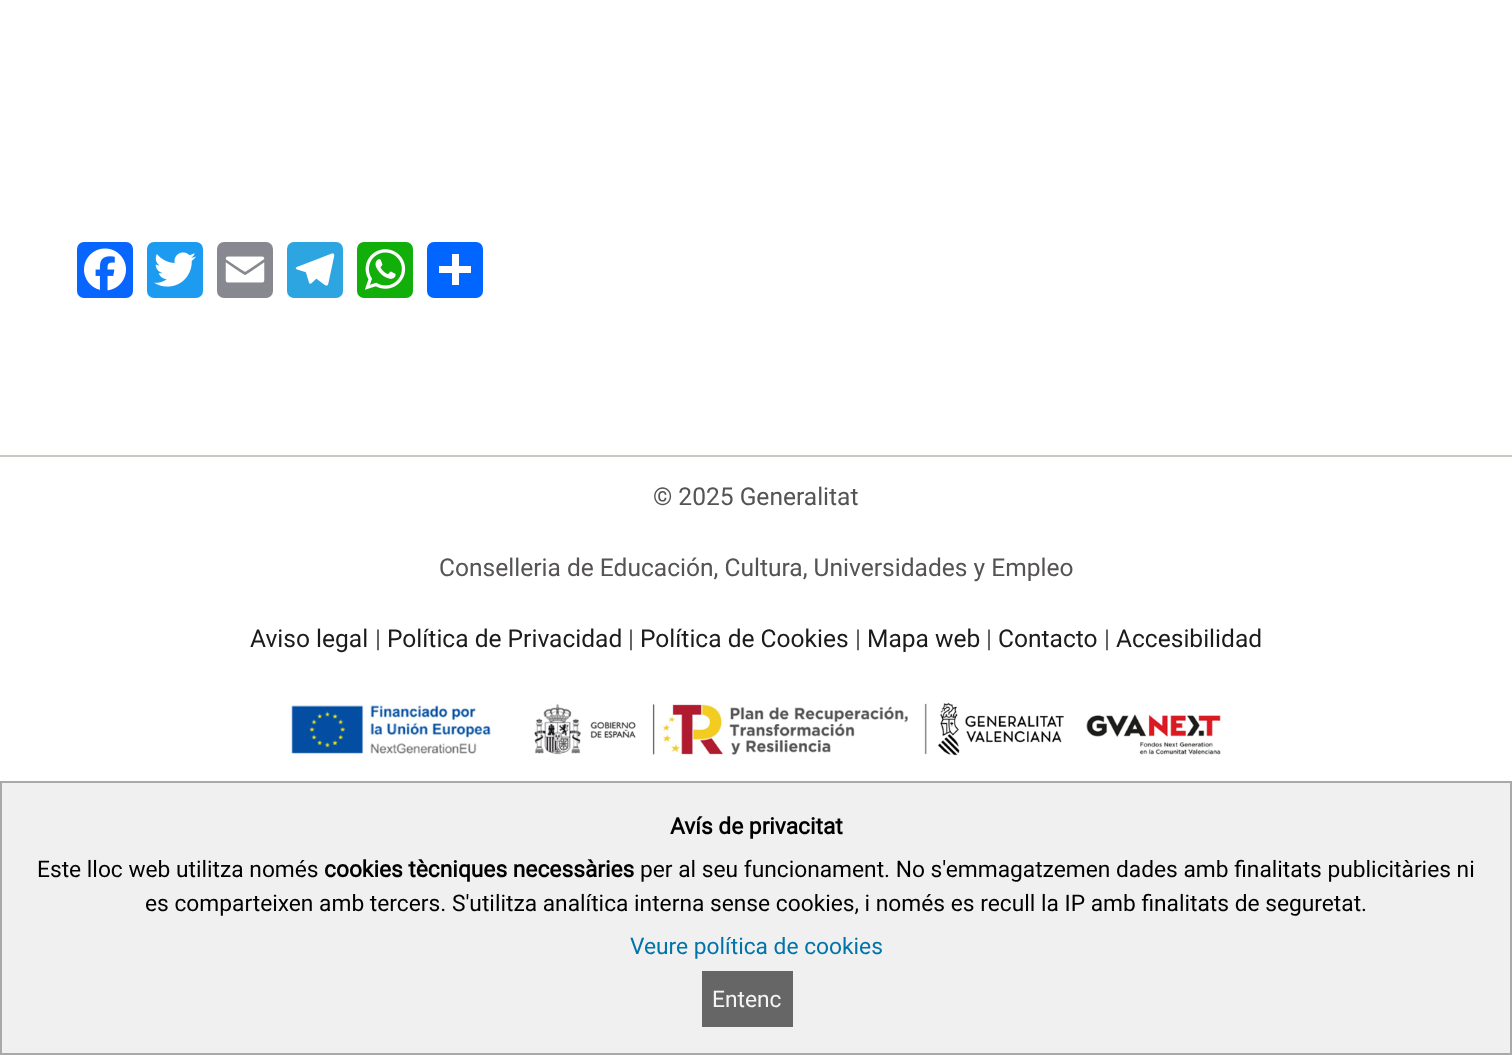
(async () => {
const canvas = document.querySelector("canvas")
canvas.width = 1512
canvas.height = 1055
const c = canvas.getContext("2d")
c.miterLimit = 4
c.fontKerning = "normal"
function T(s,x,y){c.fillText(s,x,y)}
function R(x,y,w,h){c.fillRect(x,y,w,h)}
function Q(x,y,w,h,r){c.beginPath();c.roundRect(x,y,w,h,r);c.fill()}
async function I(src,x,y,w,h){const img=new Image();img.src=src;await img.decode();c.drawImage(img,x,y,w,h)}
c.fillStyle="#fff"
R(0,0,1512,1055)
c.fillStyle="#0866ff"
Q(77,242,56,56,7)
await I("1.png",84,248,42,43)
c.fillStyle="#1d9bf0"
Q(147,242,56,56,7)
await I("2.png",154,252,42,35)
c.fillStyle="#888990"
Q(217,242,56,56,7)
await I("3.png",225,256,40,27)
c.fillStyle="#2ca5e0"
Q(287,242,56,56,7)
await I("4.png",295,253,40,33)
c.fillStyle="#12af0a"
Q(357,242,56,56,7)
await I("5.png",365,249,41,41)
c.fillStyle="#0166ff"
Q(427,242,56,56,7)
c.fillStyle="#fff"
R(452,254,7,31)
R(439,266,32,7)
c.fillStyle="#c9c9c4"
R(0,455,1512,2)
c.font="24.55px Roboto"
c.fillStyle="#565353"
T("© 2025 Generalitat",653,505)
T("Conselleria de Educación, Cultura, Universidades y Empleo",439,576)
c.fillStyle="#1b1b1b"
T("Aviso legal",250,647)
c.fillStyle="#565353"
T("|",375,647)
c.fillStyle="#1b1b1b"
T("Política de Privacidad",387,647)
c.fillStyle="#565353"
T("|",628,647)
c.fillStyle="#1b1b1b"
T("Política de Cookies",640,647)
c.fillStyle="#565353"
T("|",855,647)
c.fillStyle="#1b1b1b"
T("Mapa web",867,647)
c.fillStyle="#565353"
T("|",986,647)
c.fillStyle="#1b1b1b"
T("Contacto",998,647)
c.fillStyle="#565353"
T("|",1104,647)
c.fillStyle="#1b1b1b"
T("Accesibilidad",1116,647)
await I("6.png",291,702,930,54)
c.fillStyle="#f0f0f0"
c.beginPath()
c.rect(1,782,1510,272)
c.fill()
c.strokeStyle="#a9a9a9"
c.lineWidth=2
c.stroke()
c.font="bold 22.75px Roboto"
c.fillStyle="#000"
T("Avís de privacitat",670,834)
c.font="22.75px Roboto"
T("Este lloc web utilitza només",37,877)
c.font="bold 22.75px Roboto"
T("cookies tècniques necessàries",324,877)
c.font="22.75px Roboto"
T("per al seu funcionament. No s'emmagatzemen dades amb finalitats publicitàries ni",640,877)
T("es comparteixen amb tercers. S'utilitza analítica interna sense cookies, i només es recull la IP amb finalitats de seguretat.",145,911)
c.fillStyle="#0073aa"
T("Veure política de cookies",630,954)
c.fillStyle="#666"
R(702,971,91,56)
c.fillStyle="#f5f5f5"
T("Entenc",712,1007)
})()
